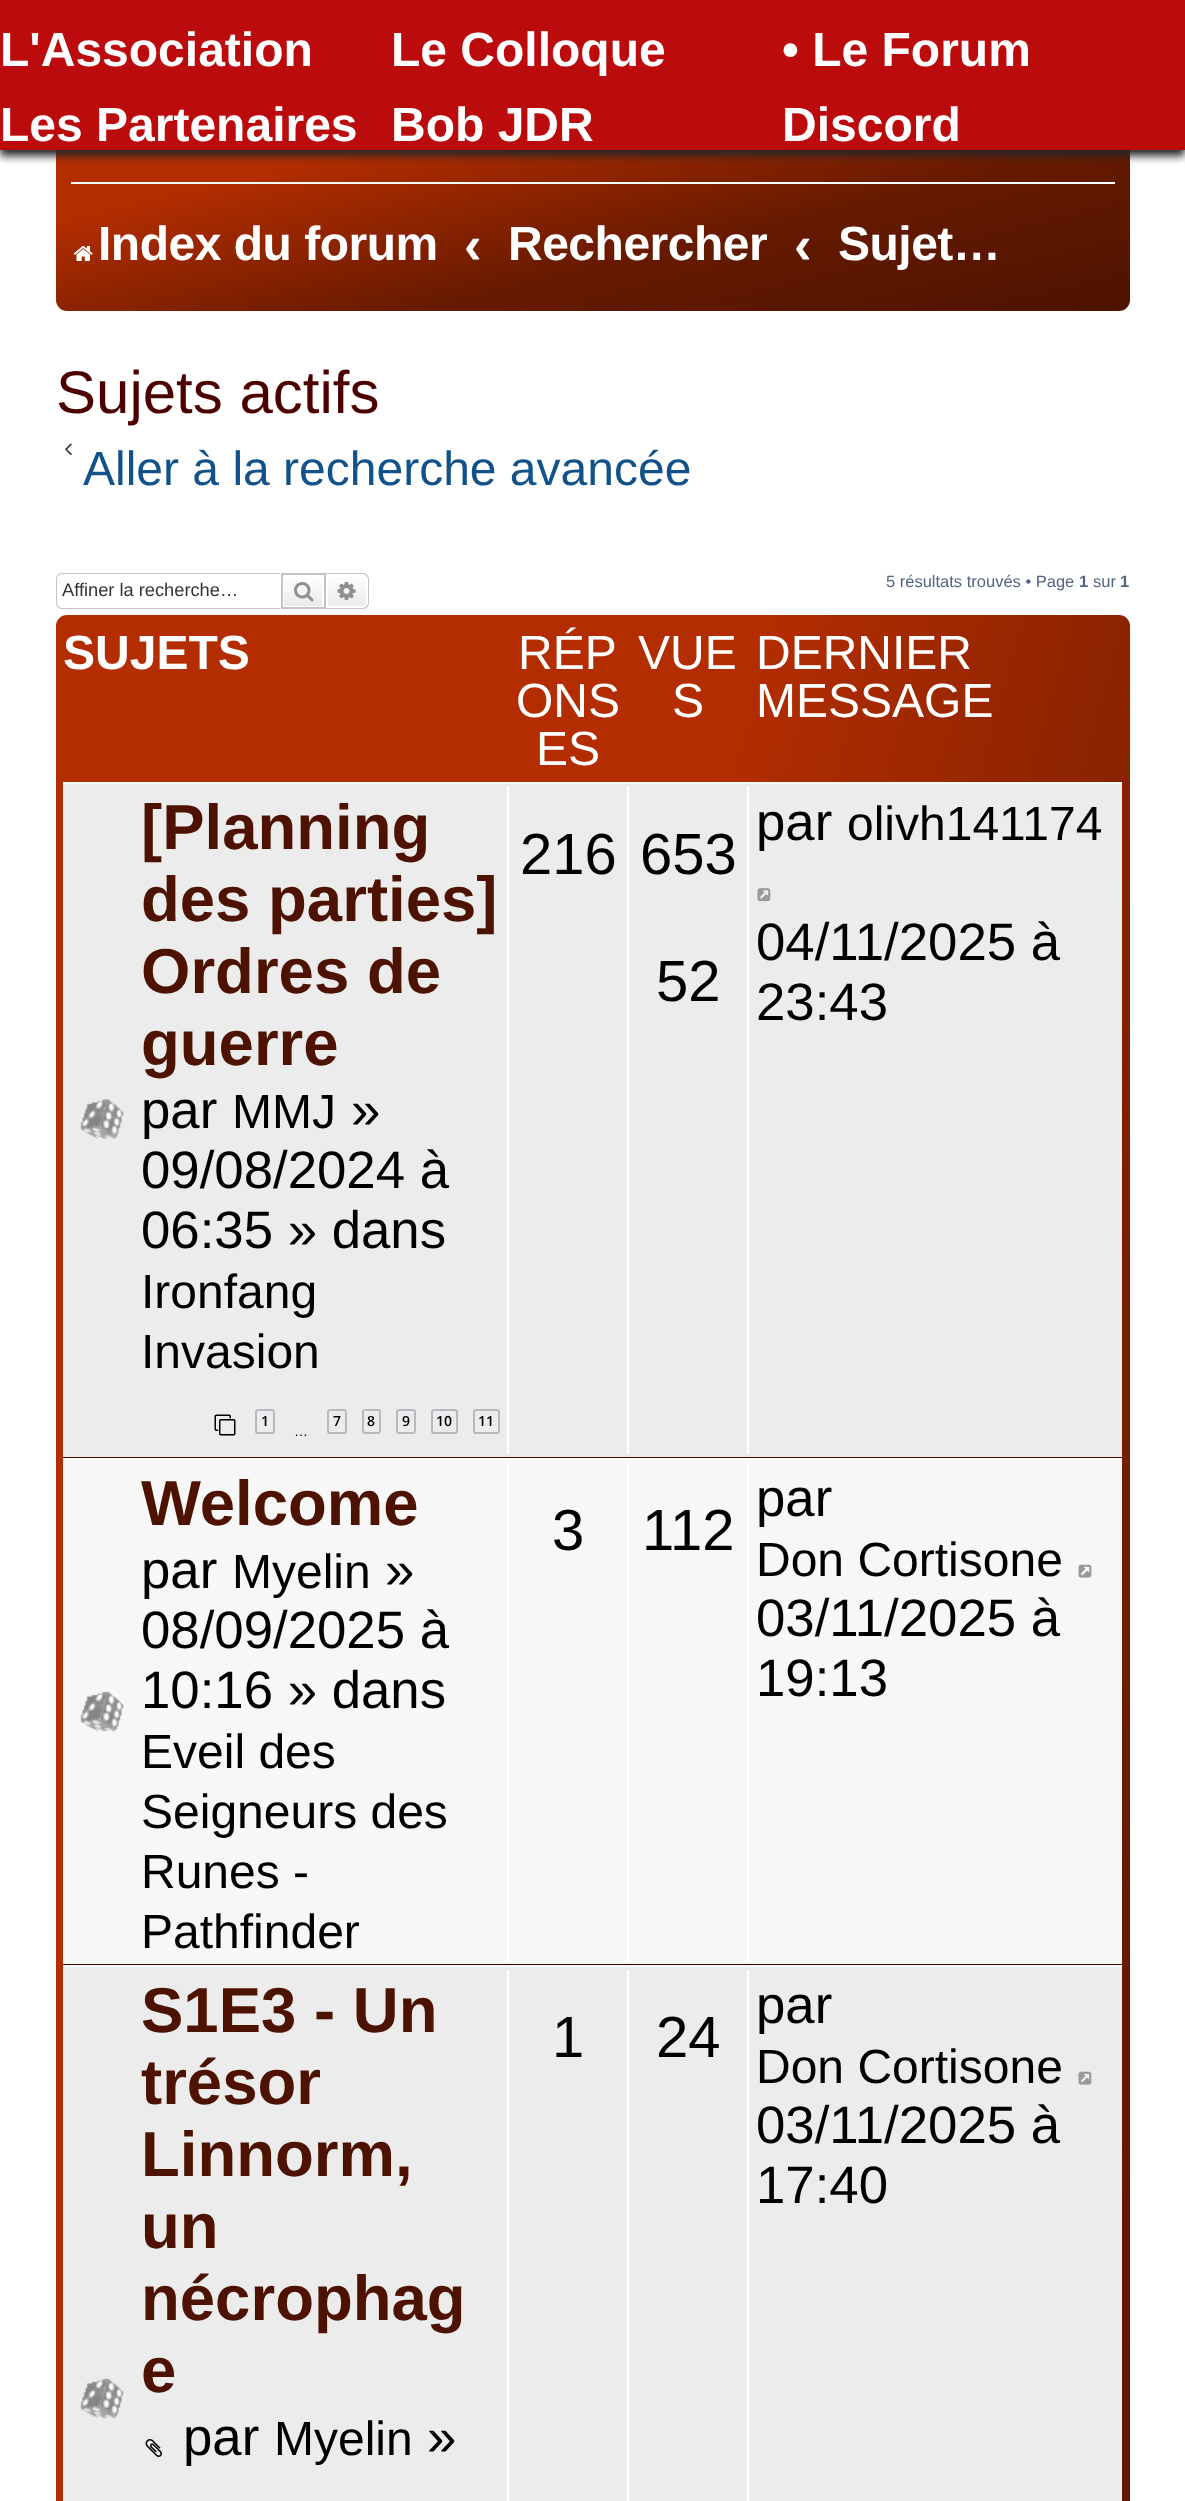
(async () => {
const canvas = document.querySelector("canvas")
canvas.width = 1185
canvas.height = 2501
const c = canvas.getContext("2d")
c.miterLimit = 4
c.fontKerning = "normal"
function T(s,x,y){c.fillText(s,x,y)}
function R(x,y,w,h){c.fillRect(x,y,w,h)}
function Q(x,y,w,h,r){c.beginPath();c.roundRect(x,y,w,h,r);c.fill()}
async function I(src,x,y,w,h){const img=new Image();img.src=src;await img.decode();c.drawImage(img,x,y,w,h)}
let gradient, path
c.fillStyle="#fff"
R(0,0,1185,2501)
gradient = c.createLinearGradient(533,-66,652,426)
gradient.addColorStop(0,"#b32d00")
gradient.addColorStop(.33,"#b32d00")
gradient.addColorStop(.67,"#661a00")
gradient.addColorStop(1,"#4d1300")
c.fillStyle = gradient
Q(56,50,1074,261,11)
c.fillStyle="#262626"
c.filter="blur(4px)"
c.beginPath()
c.rect(0,6,1185,150)
c.fill()
c.filter="none"
c.fillStyle="#bb0b0d"
R(0,0,1185,150)
c.font="bold 48px Liberation Sans"
c.fillStyle="#fff"
T("L'Association",0,66)
T("Le Colloque",391,66)
T("• Le Forum",782,66)
T("Les Partenaires",0,141)
T("Bob JDR",391,141)
T("Discord",782,141)
R(71,182,1044,2)
await I("1.png",73,246,20,15)
c.letterSpacing="-0.5px"
T("Index du forum",98,260)
c.letterSpacing="0px"
c.font="bold 52.75px Liberation Sans"
T("‹",464,263)
c.letterSpacing="-0.5px"
c.font="bold 48px Liberation Sans"
T("Rechercher",508,260)
c.letterSpacing="0px"
c.font="bold 52.75px Liberation Sans"
T("‹",794,263)
c.letterSpacing="-0.5px"
c.font="bold 48px Liberation Sans"
T("Sujet…",838,260)
c.letterSpacing="0px"
c.font="60px Liberation Sans"
c.fillStyle="#4d0000"
T("Sujets actifs",56,413)
await I("2.png",65,443,7,12)
c.font="48px Liberation Sans"
c.fillStyle="#105289"
T("Aller à la recherche avancée",83,485)
c.fillStyle="#c7c3bf"
path = new Path2D("M62 573h218v36h-218c-4 0-6-3-6-6v-24c0-3 2-6 6-6zm0 1h218v34h-218c-3 0-5-3-5-5v-24c0-2 2-5 5-5z")
c.fill(path,"evenodd")
c.font="18.25px Liberation Sans"
c.fillStyle="#333"
T("Affiner la recherche…",62,596)
gradient = c.createLinearGradient(303,575,303,608)
gradient.addColorStop(0,"#fff")
gradient.addColorStop(1,"#e9e9e9")
c.fillStyle = gradient
R(284,579,38,27)
c.strokeStyle="#c7c3bf"
c.lineWidth=2
c.strokeRect(282,574,43,34)
await I("3.png",294,582,20,20)
gradient = c.createLinearGradient(347,575,347,608)
gradient.addColorStop(0,"#fff")
gradient.addColorStop(1,"#e9e9e9")
c.fillStyle = gradient
c.beginPath()
c.roundRect(327,576,40,31,[0,4,4,0])
c.fill()
c.strokeStyle="#fff"
c.stroke()
c.fillStyle="#c7c3bf"
path = new Path2D("M326 573h37c3 0 6 3 6 6v24c0 3-3 6-6 6h-37zm0 1h37c2 0 5 3 5 5v24c0 2-3 5-5 5h-37z")
c.fill(path,"evenodd")
await I("4.png",337,582,19,18)
c.font="16.5px Liberation Sans"
c.fillStyle="#536482"
T("5 résultats trouvés • Page",886,587)
c.font="bold 16.5px Liberation Sans"
T("1",1079,587)
c.font="16.5px Liberation Sans"
T("sur",1093,587)
c.font="bold 16.5px Liberation Sans"
T("1",1120,587)
gradient = c.createLinearGradient(-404,2256,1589,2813)
gradient.addColorStop(0,"#b32d00")
gradient.addColorStop(.33,"#b32d00")
gradient.addColorStop(.67,"#661a00")
gradient.addColorStop(1,"#4d1300")
c.fillStyle = gradient
Q(56,615,1074,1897,11)
c.font="bold 48px Liberation Sans"
c.fillStyle="#fff"
T("SUJETS",63,669)
c.font="48px Liberation Sans"
T("RÉP",518,669)
T("ONS",516,717)
T("ES",536,765)
T("VUE",638,669)
T("S",672,717)
T("DERNIER",756,669)
T("MESSAGE",756,717)
c.fillStyle="#ececec"
R(63,784,1059,673)
c.fillStyle="#fff"
R(63,782,1059,2)
c.fillStyle="#4d0000"
R(63,1457,1059,1)
await I("5.png",80,1099,44,40)
c.font="bold 63.5px Liberation Sans"
c.fillStyle="#4d1200"
T("[Planning",141,849)
T("des parties]",141,921)
T("Ordres de",141,993)
T("guerre",141,1065)
c.font="52.75px Liberation Sans"
c.fillStyle="#000"
T("par",141,1128)
c.font="48px Liberation Sans"
T("MMJ",232,1128)
c.font="52.75px Liberation Sans"
T("»",351,1128)
T("09/08/2024 à",141,1188)
T("06:35 » dans",141,1248)
c.font="48px Liberation Sans"
T("Ironfang",141,1308)
T("Invasion",141,1368)
await I("6.png",214,1414,22,22)
c.beginPath()
c.roundRect(256,1410,18,23,2)
c.strokeStyle="#b4bac0"
c.stroke()
c.font="600 14px Open Sans"
T("1",261,1426)
c.beginPath()
c.roundRect(328,1410,18,23,2)
c.stroke()
T("7",333,1426)
c.beginPath()
c.roundRect(363,1410,17,23,2)
c.stroke()
T("8",367,1426)
c.beginPath()
c.roundRect(397,1410,18,23,2)
c.stroke()
T("9",402,1426)
c.beginPath()
c.roundRect(432,1410,25,23,2)
c.stroke()
T("10",436,1426)
c.beginPath()
c.roundRect(474,1410,25,23,2)
c.stroke()
T("11",478,1426)
c.font="14px Liberation Sans"
T("…",294,1436)
c.fillStyle="#fff"
R(507,786,2,668)
c.font="58px Liberation Sans"
c.fillStyle="#000"
T("216",520,874)
c.fillStyle="#fff"
R(627,786,2,668)
c.fillStyle="#000"
T("653",640,874)
T("52",656,1001)
c.fillStyle="#fff"
R(747,786,2,668)
c.font="52.75px Liberation Sans"
c.fillStyle="#000"
T("par",756,840)
c.font="48px Liberation Sans"
T("olivh141174",847,840)
await I("7.png",757,888,14,14)
c.font="52.75px Liberation Sans"
T("04/11/2025 à",756,960)
T("23:43",756,1020)
c.fillStyle="#f7f7f7"
R(63,1460,1059,504)
c.fillStyle="#fff"
R(63,1458,1059,2)
c.fillStyle="#4d0000"
R(63,1964,1059,1)
await I("8.png",80,1691,44,41)
c.font="bold 63.5px Liberation Sans"
c.fillStyle="#4d1200"
T("Welcome",141,1525)
c.font="52.75px Liberation Sans"
c.fillStyle="#000"
T("par",141,1588)
c.font="48px Liberation Sans"
T("Myelin",232,1588)
c.font="52.75px Liberation Sans"
T("»",385,1588)
T("08/09/2025 à",141,1648)
T("10:16 » dans",141,1708)
c.font="48px Liberation Sans"
T("Eveil des",141,1768)
T("Seigneurs des",141,1828)
T("Runes -",141,1888)
T("Pathfinder",141,1948)
c.fillStyle="#fff"
R(507,1463,2,498)
c.font="58px Liberation Sans"
c.fillStyle="#000"
T("3",552,1550)
c.fillStyle="#fff"
R(627,1463,2,498)
c.fillStyle="#000"
T("112",642,1550)
c.fillStyle="#fff"
R(747,1463,2,498)
c.font="52.75px Liberation Sans"
c.fillStyle="#000"
T("par",756,1516)
c.font="48px Liberation Sans"
T("Don Cortisone",756,1576)
await I("9.png",1078,1564,14,14)
c.font="52.75px Liberation Sans"
T("03/11/2025 à",756,1636)
T("19:13",756,1696)
c.fillStyle="#ececec"
R(63,1967,1059,534)
c.fillStyle="#fff"
R(63,1965,1059,2)
await I("10.png",80,2378,44,41)
c.font="bold 63.5px Liberation Sans"
c.fillStyle="#4d1200"
T("S1E3 - Un",141,2032)
T("trésor",141,2104)
T("Linnorm,",141,2176)
T("un",141,2248)
T("nécrophag",141,2320)
T("e",141,2392)
await I("11.png",145,2439,17,18)
c.font="52.75px Liberation Sans"
c.fillStyle="#000"
T("par",183,2455)
c.font="48px Liberation Sans"
T("Myelin",274,2455)
c.font="52.75px Liberation Sans"
T("»",427,2455)
c.fillStyle="#fff"
R(507,1970,2,531)
c.font="58px Liberation Sans"
c.fillStyle="#000"
T("1",552,2057)
c.fillStyle="#fff"
R(627,1970,2,531)
c.fillStyle="#000"
T("24",656,2057)
c.fillStyle="#fff"
R(747,1970,2,531)
c.font="52.75px Liberation Sans"
c.fillStyle="#000"
T("par",756,2023)
c.font="48px Liberation Sans"
T("Don Cortisone",756,2083)
await I("12.png",1078,2071,14,14)
c.font="52.75px Liberation Sans"
T("03/11/2025 à",756,2143)
T("17:40",756,2203)
})()
